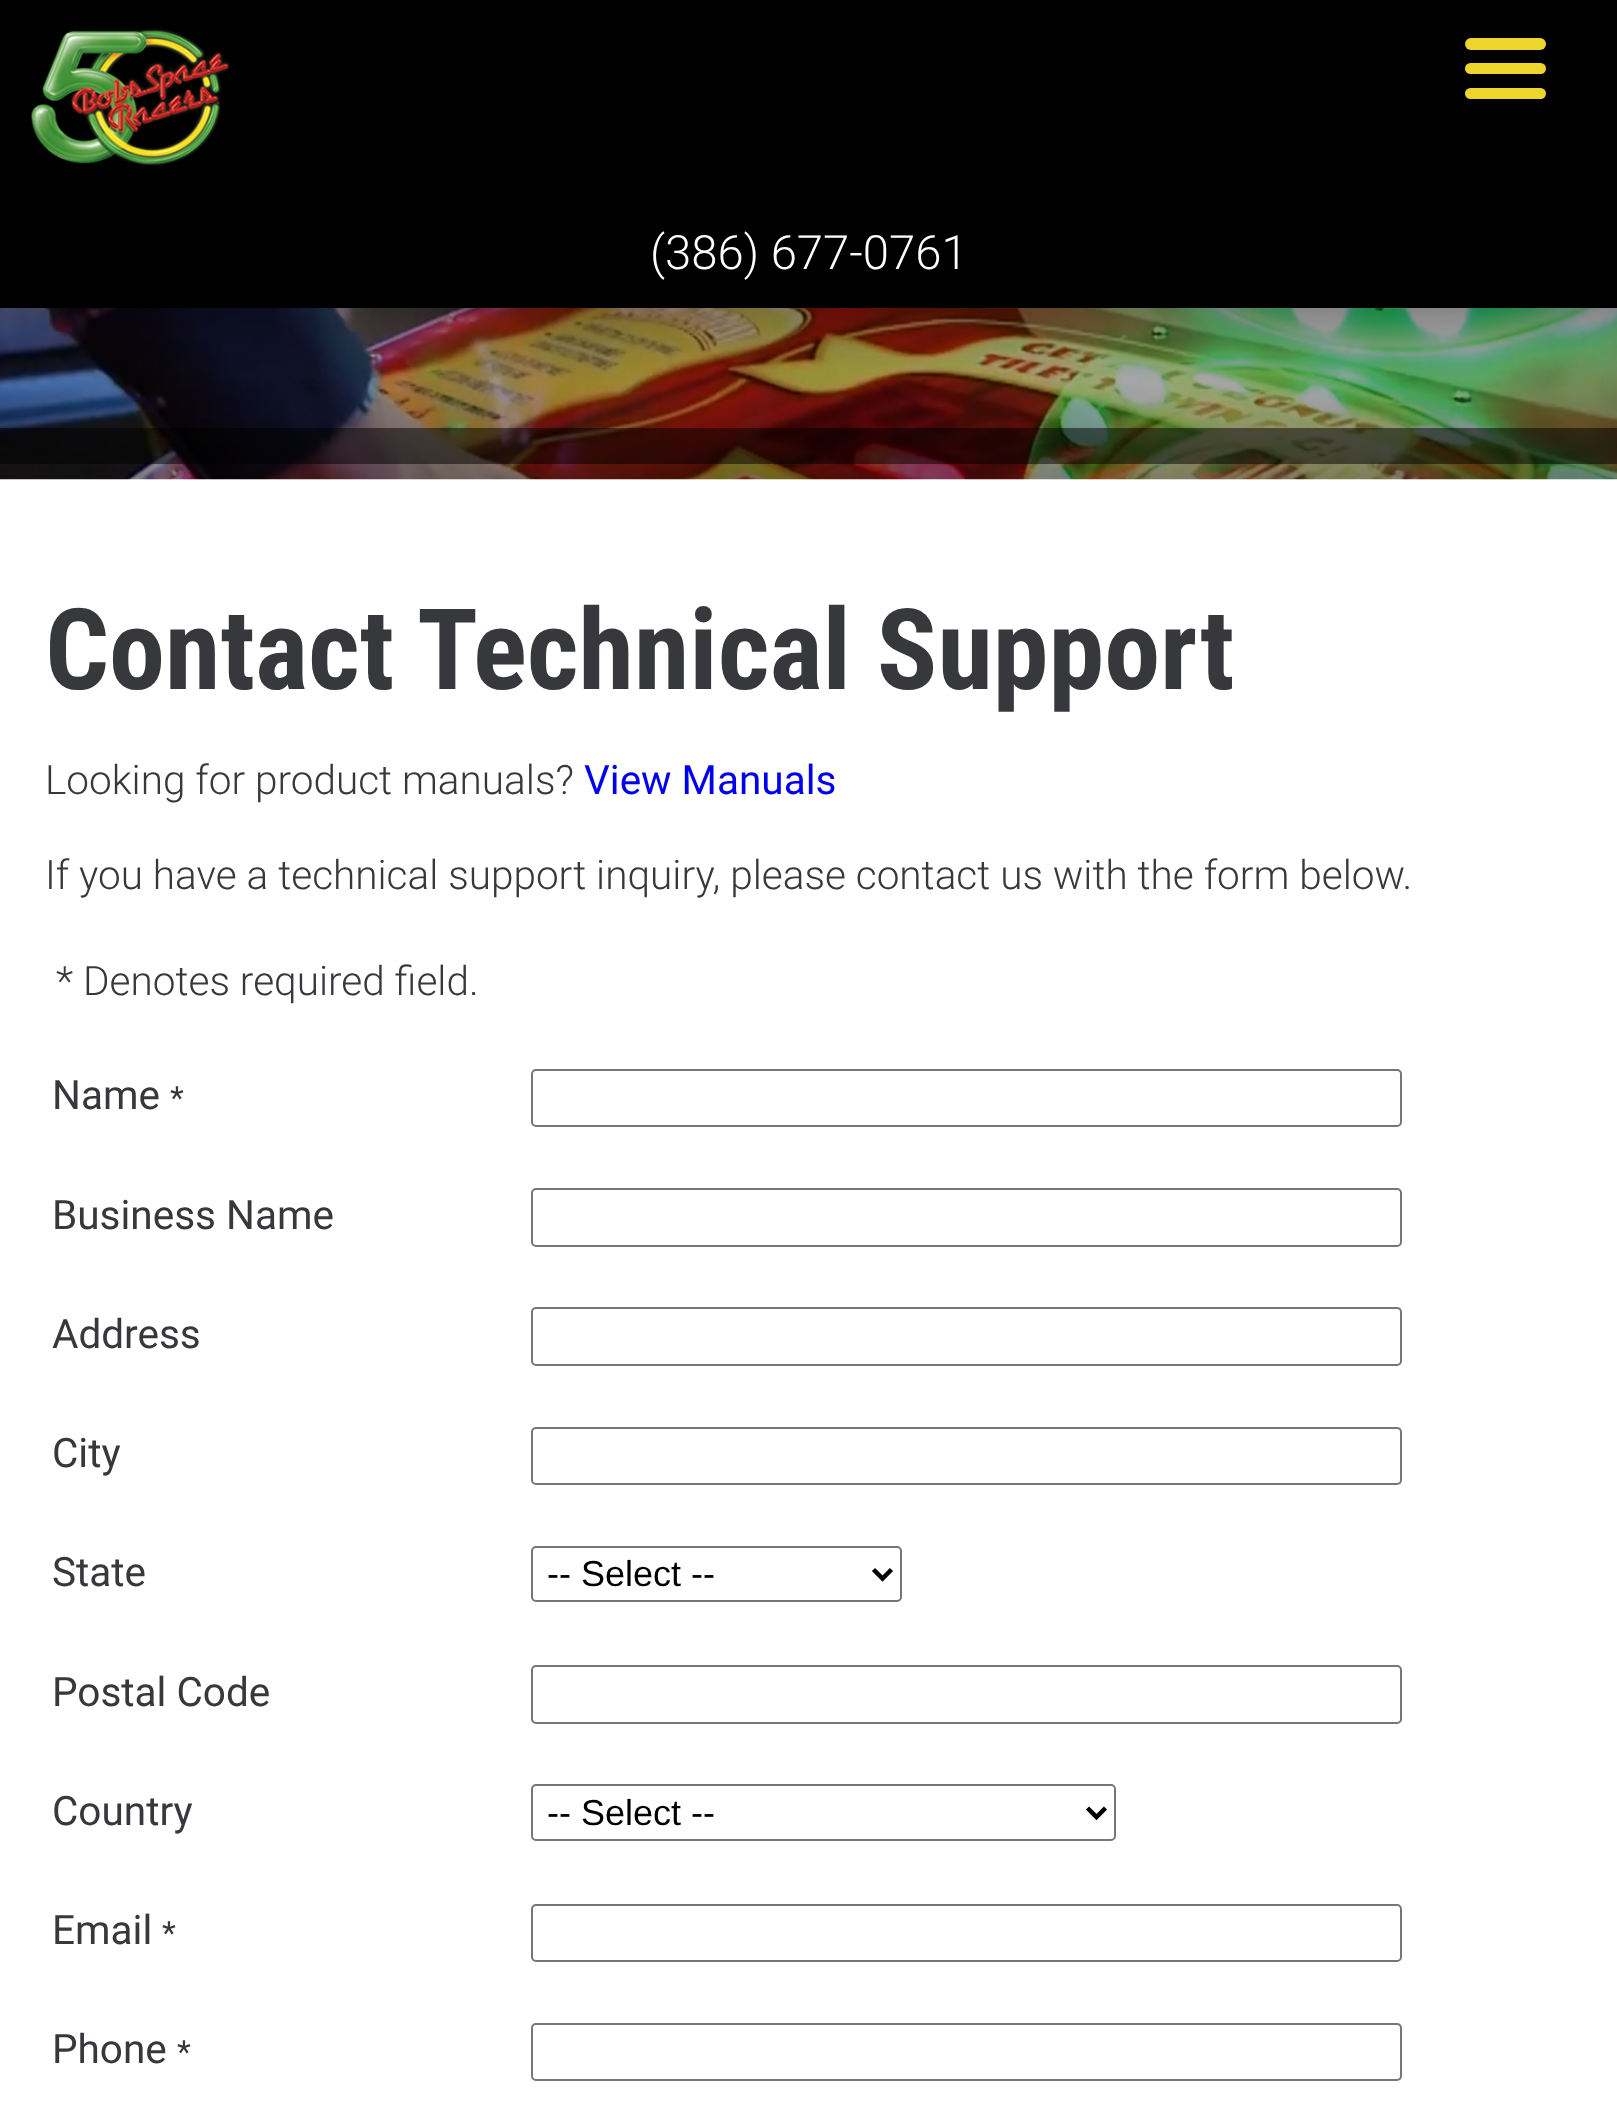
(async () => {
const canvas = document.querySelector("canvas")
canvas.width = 1617
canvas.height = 2126
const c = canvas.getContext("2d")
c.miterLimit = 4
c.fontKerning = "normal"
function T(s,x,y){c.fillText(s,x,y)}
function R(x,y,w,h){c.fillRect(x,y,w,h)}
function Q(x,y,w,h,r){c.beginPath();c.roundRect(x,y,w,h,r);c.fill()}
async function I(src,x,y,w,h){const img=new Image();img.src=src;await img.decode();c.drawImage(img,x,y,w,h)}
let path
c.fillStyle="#fff"
R(0,0,1617,2126)
c.fillStyle="#000"
R(0,0,1617,308)
await I("1.png",31,28,200,138)
c.fillStyle="#edd52d"
Q(1465,38,81,12,6)
Q(1465,63,81,11,5.5)
Q(1465,88,81,11,5.5)
c.font="300 47.25px Roboto"
c.fillStyle="#fff"
T("(386) 677-0761",650,269)
await I("2.png",0,308,1617,172)
c.fillStyle="#00000080"
R(0,428,1617,36)
c.font="bold 112.5px Roboto Condensed"
c.fillStyle="#37383c"
T("Contact Technical Support",45,689)
c.font="300 40.5px Roboto"
T("Looking for product manuals?",45,794)
c.font="40.5px Roboto"
c.fillStyle="#00e"
T("View Manuals",584,794)
c.font="300 40.5px Roboto"
c.fillStyle="#37383c"
T("If you have a technical support inquiry, please contact us with the form below.",45,889)
T("* Denotes required field.",56,995)
c.font="40.5px Roboto"
T("Name",52,1109)
c.font="32px Roboto"
T("*",170,1109)
c.beginPath()
c.roundRect(532,1070,869,56,4)
c.strokeStyle="#767676"
c.lineWidth=2
c.stroke()
c.font="40.5px Roboto"
T("Business Name",52,1229)
c.beginPath()
c.roundRect(532,1189,869,57,4)
c.stroke()
T("Address",52,1348)
c.beginPath()
c.roundRect(532,1308,869,57,4)
c.stroke()
T("City",52,1467)
c.beginPath()
c.roundRect(532,1428,869,56,4)
c.stroke()
T("State",52,1586)
c.beginPath()
c.roundRect(532,1547,369,54,4)
c.stroke()
path = new Path2D("M873.5 1569.5l9 9l9-9")
c.strokeStyle="#000"
c.lineWidth=4.5
c.stroke(path)
c.font="36px Liberation Sans"
c.fillStyle="#000"
T("-- Select --",547,1586)
c.font="40.5px Roboto"
c.fillStyle="#37383c"
T("Postal Code",52,1706)
c.beginPath()
c.roundRect(532,1666,869,57,4)
c.strokeStyle="#767676"
c.lineWidth=2
c.stroke()
T("Country",52,1825)
c.beginPath()
c.roundRect(532,1785,583,55,4)
c.stroke()
path = new Path2D("M1087.5 1808l9 9l9-9")
c.strokeStyle="#000"
c.lineWidth=4.5
c.stroke(path)
c.font="36px Liberation Sans"
c.fillStyle="#000"
T("-- Select --",547,1825)
c.font="40.5px Roboto"
c.fillStyle="#37383c"
T("Email",52,1944)
c.font="32px Roboto"
T("*",162,1944)
c.beginPath()
c.roundRect(532,1905,869,56,4)
c.strokeStyle="#767676"
c.lineWidth=2
c.stroke()
c.font="40.5px Roboto"
T("Phone",52,2063)
c.font="32px Roboto"
T("*",177,2063)
c.beginPath()
c.roundRect(532,2024,869,56,4)
c.stroke()
})()
